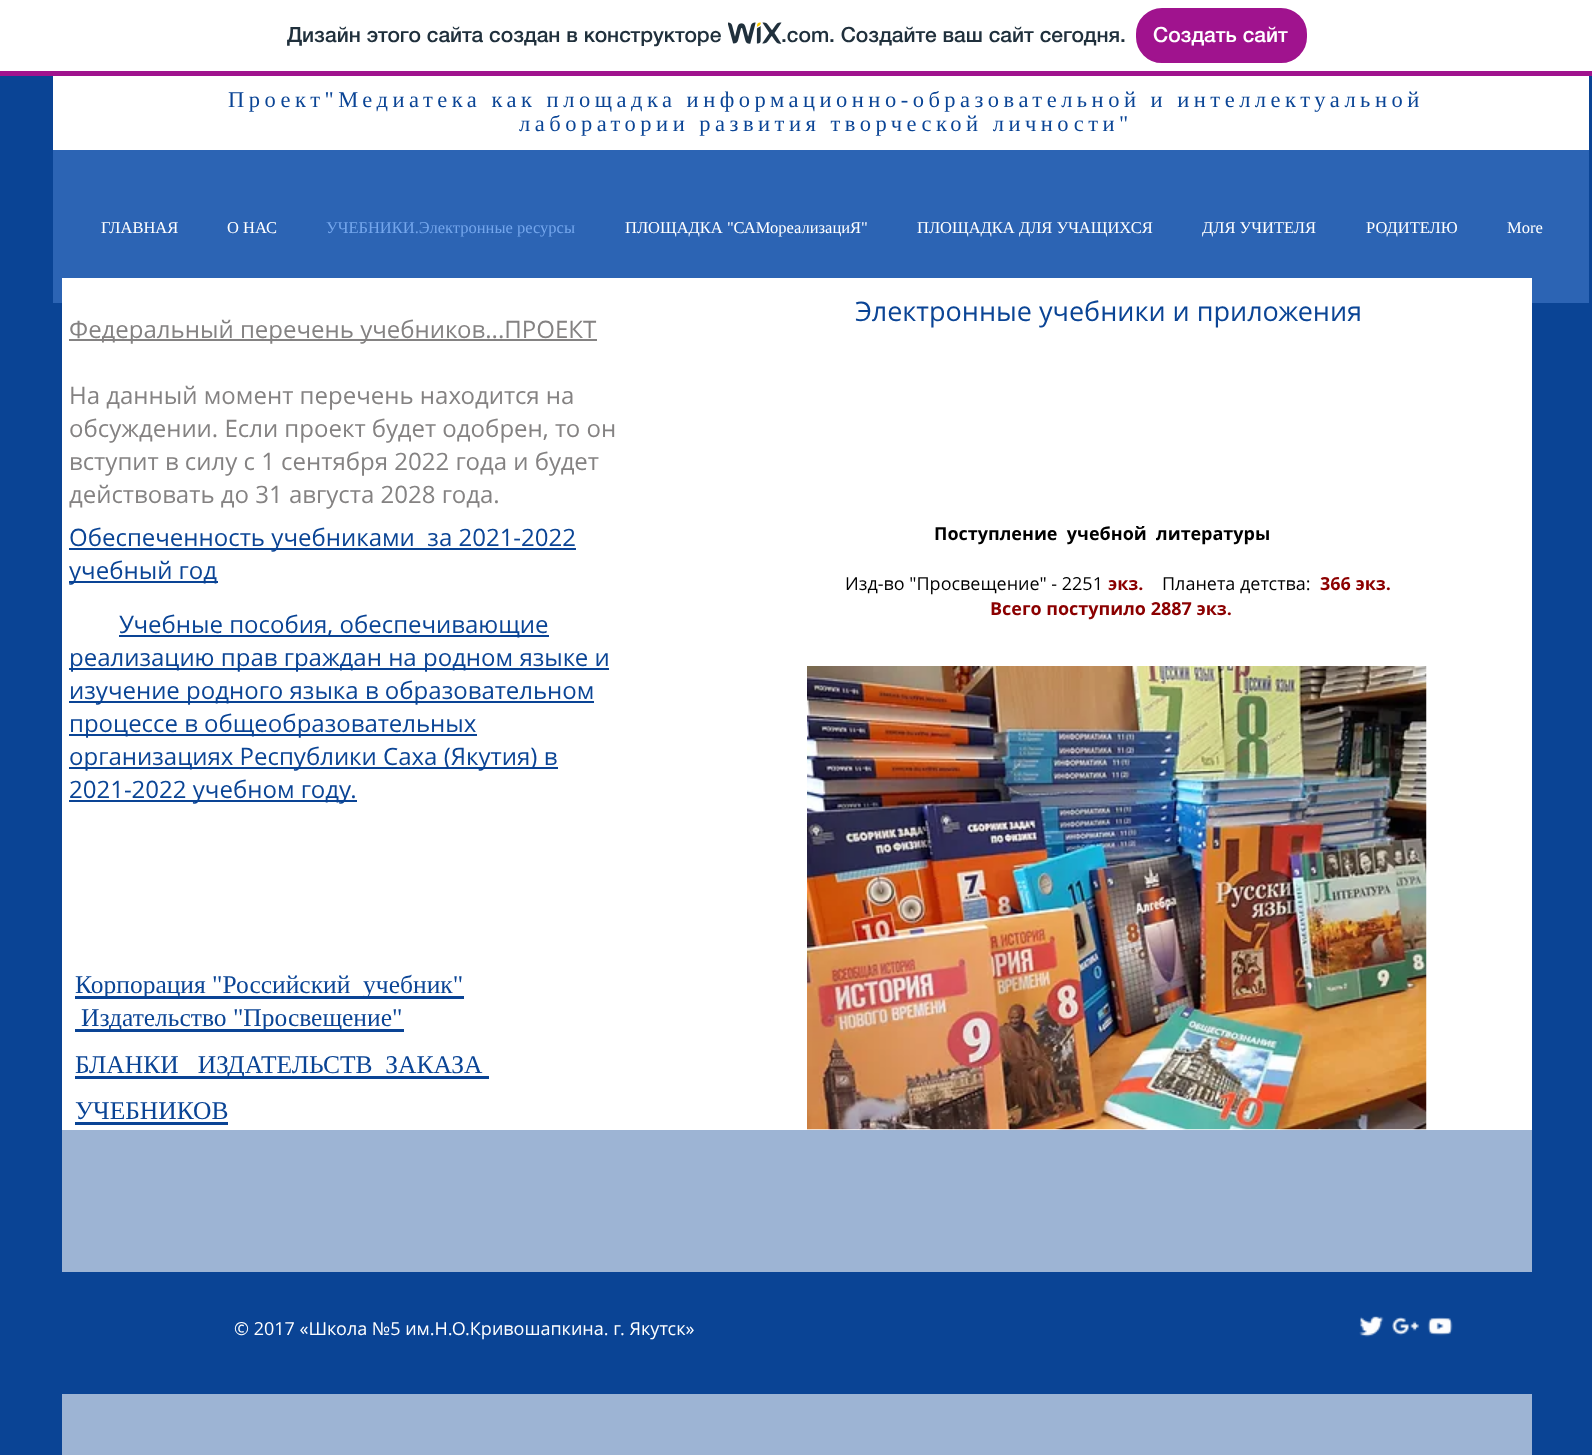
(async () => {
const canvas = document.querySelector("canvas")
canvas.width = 1592
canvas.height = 1455
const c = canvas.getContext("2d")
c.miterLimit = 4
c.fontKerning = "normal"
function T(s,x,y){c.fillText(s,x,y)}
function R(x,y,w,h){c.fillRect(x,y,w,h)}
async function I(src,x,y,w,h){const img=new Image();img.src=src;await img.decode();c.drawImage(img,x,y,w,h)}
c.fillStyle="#0a4495"
R(0,0,1592,1455)
c.fillStyle="#fff"
R(0,0,1592,71)
c.fillStyle="#a0138e"
R(0,71,1592,5)
c.font="500 21px 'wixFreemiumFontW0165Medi'"
c.fillStyle="#20303c"
T("Дизайн этого сайта создан в конструкторе",287,42)
await I("1.png",728,22,54,22)
c.font="500 21px 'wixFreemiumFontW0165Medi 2'"
T(".com",781,42)
c.font="500 21px 'wixFreemiumFontW0165Medi'"
T(". Создайте ваш сайт сегодня.",829,42)
c.fillStyle="#a0138e"
c.beginPath()
c.roundRect(1137,9,169,53,25)
c.fill()
c.strokeStyle="#a0138e"
c.lineWidth=2
c.stroke()
c.fillStyle="#fff"
T("Создать сайт",1153,42)
R(53,76,1536,74)
c.letterSpacing="4.5px"
c.font="22.5px Liberation Serif"
c.fillStyle="#0a4495"
T("Проект\"Медиатека как площадка информационно-образовательной и интеллектуальной",228,107)
T("лаборатории развития творческой личности\"",519,131)
c.fillStyle="#2c64b4"
R(53,150,1536,153)
c.letterSpacing="0px"
c.font="16.5px Liberation Serif"
c.fillStyle="#fff"
T("ГЛАВНАЯ",101,233)
T("О НАС",227,233)
c.fillStyle="#74a6ec"
T("УЧЕБНИКИ.Электронные ресурсы",326,233)
c.fillStyle="#fff"
T("ПЛОЩАДКА \"САМореализациЯ\"",625,233)
T("ПЛОЩАДКА ДЛЯ УЧАЩИХСЯ",917,233)
T("ДЛЯ УЧИТЕЛЯ",1202,233)
T("РОДИТЕЛЮ",1366,233)
T("More",1507,233)
R(62,278,1470,852)
c.font="27px Open Sans"
c.fillStyle="#0a4495"
T("Электронные учебники и приложения",855,321)
c.fillStyle="#848282"
R(69,339,528,2)
c.font="24px Open Sans"
T("Федеральный перечень учебников...ПРОЕКТ",69,338)
T("На данный момент перечень находится на",69,404)
T("обсуждении. Если проект будет одобрен, то он",69,437)
T("вступит в силу с 1 сентября 2022 года и будет",69,470)
T("действовать до 31 августа 2028 года.",69,503)
c.fillStyle="#0a4495"
R(69,548,507,2)
T("Обеспеченность учебниками  за 2021-2022",69,546)
R(69,581,149,2)
T("учебный год",69,579)
c.font="bold 18px Open Sans"
c.fillStyle="#000"
T("Поступление  учебной  литературы",934,540)
c.font="18px Open Sans"
T("Изд-во \"Просвещение\" - 2251",845,590)
c.font="bold 18px Open Sans"
c.fillStyle="#8b0000"
T("экз.",1108,590)
c.font="18px Open Sans"
c.fillStyle="#000"
T("Планета детства:",1162,590)
c.font="bold 18px Open Sans"
c.fillStyle="#8b0000"
T("366 экз.",1320,590)
T("Всего поступило 2887 экз.",990,615)
c.fillStyle="#0a4495"
R(119,635,430,2)
c.font="24px Open Sans"
T("Учебные пособия, обеспечивающие",119,633)
R(69,668,540,2)
T("реализацию прав граждан на родном языке и",69,666)
R(69,701,525,2)
T("изучение родного языка в образовательном",69,699)
R(69,734,408,2)
T("процессе в общеобразовательных",69,732)
R(69,767,489,2)
T("организациях Республики Саха (Якутия) в",69,765)
R(69,800,288,2)
T("2021-2022 учебном году.",69,798)
await I("2.png",807,666,620,464)
R(75,996,389,3)
c.font="25.5px Liberation Serif"
T("Корпорация \"Российский  учебник\"",75,993)
R(75,1029,329,3)
T("Издательство \"Просвещение\"",81,1026)
R(75,1076,414,3)
T("БЛАНКИ   ИЗДАТЕЛЬСТВ  ЗАКАЗА",75,1073)
T("УЧЕБНИКОВ",75,1119)
R(75,1122,153,3)
c.fillStyle="#9db4d4"
R(62,1130,1470,325)
c.fillStyle="#0a4495"
R(62,1272,1470,122)
c.font="18px Open Sans"
c.fillStyle="#fff"
T("© 2017 «Школа №5 им.Н.О.Кривошапкина. г. Якутск»",234,1335)
await I("3.png",1359,1316,25,21)
await I("4.png",1392,1317,27,19)
await I("5.png",1427,1317,26,19)
})()
